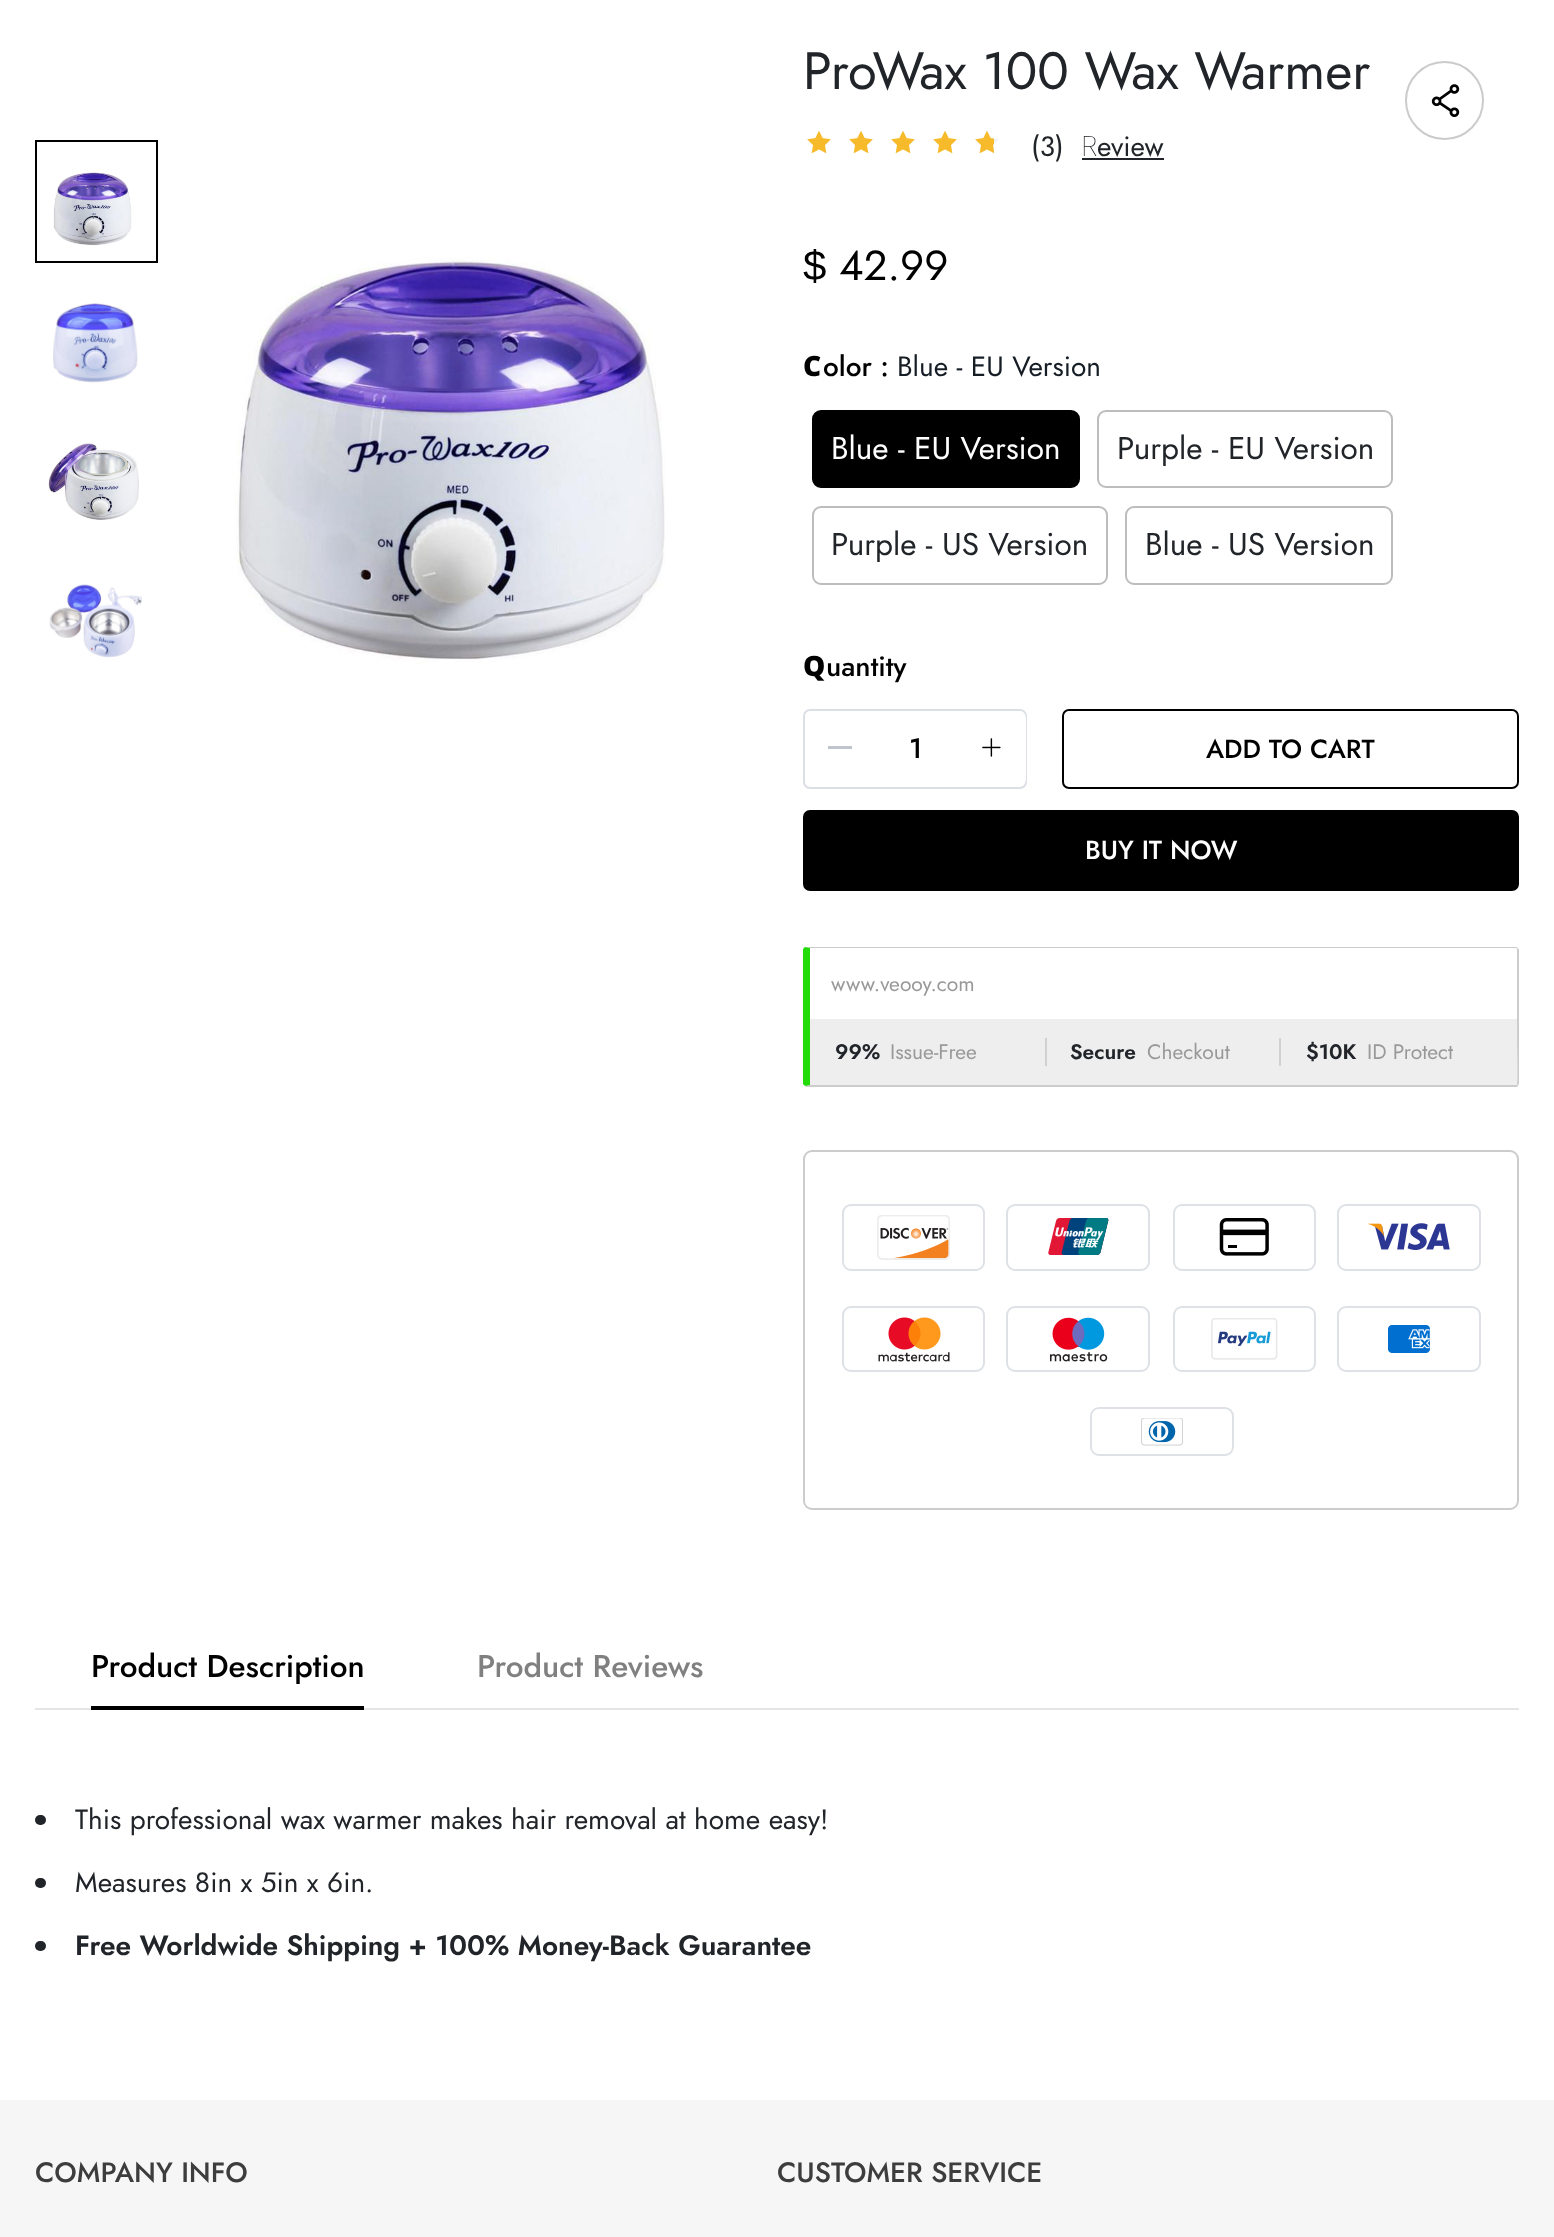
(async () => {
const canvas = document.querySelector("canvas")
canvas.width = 1554
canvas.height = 2237
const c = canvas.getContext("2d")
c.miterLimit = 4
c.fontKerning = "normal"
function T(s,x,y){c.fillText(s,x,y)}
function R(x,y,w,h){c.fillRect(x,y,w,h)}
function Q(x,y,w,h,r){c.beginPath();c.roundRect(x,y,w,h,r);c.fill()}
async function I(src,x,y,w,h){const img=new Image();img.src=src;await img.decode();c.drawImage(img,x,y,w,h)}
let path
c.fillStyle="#fff"
R(0,0,1554,2237)
c.strokeStyle="#000"
c.lineWidth=2
c.strokeRect(36,141,121,121)
await I("1.png",53,172,79,74)
await I("2.png",53,303,85,80)
await I("3.png",48,443,91,77)
await I("4.png",49,584,93,74)
await I("5.png",235,257,430,407)
c.font="52.5px Jost"
c.fillStyle="#212529"
T("ProWax 100 Wax Warmer",803,89)
await I("6.png",807,131,24,23)
await I("6.png",849,131,24,23)
await I("6.png",891,131,24,23)
await I("6.png",933,131,24,23)
await I("7.png",975,131,24,22)
await I("8.png",975,131,19,23)
c.font="28px Jost"
T("(3)",1031,156)
c.font="100 28px Noto Sans"
T("R",1081,156)
R(1082,158,82,2)
c.font="28px Jost"
T("eview",1097,156)
c.font="42px Liberation Sans"
c.fillStyle="#000"
T("$",803,280)
c.font="42px Jost"
T("42.99",839,280)
c.beginPath()
c.arc(1444.5,100.5,38.5,0,7)
c.strokeStyle="#cbcbcb"
c.stroke()
await I("9.png",1431,84,29,33)
c.font="900 28px Noto Sans"
T("C",803,376)
c.font="500 28px Jost"
T("olor :",823,376)
c.font="28px Jost"
c.fillStyle="#161d25"
T("Blue - EU Version",897,376)
c.fillStyle="#000"
c.beginPath()
c.roundRect(813,411,266,76,8)
c.fill()
c.strokeStyle="#000"
c.stroke()
c.font="31.5px Jost"
c.fillStyle="#fff"
T("Blue - EU Version",831,459)
c.beginPath()
c.roundRect(1098,411,294,76,8)
c.strokeStyle="#bdbdbd"
c.stroke()
c.fillStyle="#212529"
T("Purple - EU Version",1117,459)
c.beginPath()
c.roundRect(813,507,294,77,8)
c.stroke()
T("Purple - US Version",831,555)
c.beginPath()
c.roundRect(1126,507,266,77,8)
c.stroke()
T("Blue - US Version",1145,555)
c.font="900 28px Noto Sans"
c.fillStyle="#000"
T("Q",803,676)
c.font="500 28px Jost"
T("uantity",826,676)
c.beginPath()
c.roundRect(804,710,222,78,6)
c.strokeStyle="#dcdfe6"
c.stroke()
c.fillStyle="#c0c4cc"
R(828,746,24,3)
c.fillStyle="#000"
T("1",909,758)
c.fillStyle="#fff"
c.beginPath()
c.roundRect(956,711,70,75,[0,7,7,0])
c.fill()
await I("10.png",982,738,19,19)
c.beginPath()
c.roundRect(1063,710,455,78,6)
c.strokeStyle="#000"
c.stroke()
c.font="500 26.25px Jost"
c.fillStyle="#000"
T("ADD TO CART",1206,758)
c.beginPath()
c.roundRect(804,811,714,79,6)
c.fill()
c.stroke()
c.fillStyle="#fff"
T("BUY IT NOW",1085,859)
c.fillStyle="#ccc"
path = new Path2D("M807 947h-2l5 1h706l1 1l1-1l-2-1z")
c.fill(path)
path = new Path2D("M1518 948l1 2v133l-1 3l-1-2c1-2 0-42 0-45v-90z")
c.fill(path)
path = new Path2D("M806 1087l-1-1l5-1h706l1-1l1 2l-1 1z")
c.fill(path)
c.fillStyle="#22dc09"
path = new Path2D("M803 949l2-2l5 1v137l-5 1l-2-2z")
c.fill(path)
c.font="21px Jost"
c.fillStyle="#999"
T("www.veooy.com",831,991)
c.fillStyle="#eee"
R(810,1019,707,66)
c.font="600 21px Jost"
c.fillStyle="#212529"
T("99%",835,1059)
c.font="21px Jost"
c.fillStyle="#999"
T("Issue-Free",890,1059)
c.fillStyle="#d1d1d1"
R(1045,1038,2,28)
c.font="600 21px Jost"
c.fillStyle="#212529"
T("Secure",1070,1059)
c.font="21px Jost"
c.fillStyle="#999"
T("Checkout",1147,1059)
c.fillStyle="#d1d1d1"
R(1279,1038,2,28)
c.font="600 21px Jost"
c.fillStyle="#212529"
T("$10K",1306,1059)
c.font="21px Jost"
c.fillStyle="#999"
T("ID Protect",1367,1059)
c.beginPath()
c.roundRect(804,1151,714,358,8)
c.strokeStyle="#ccc"
c.stroke()
c.beginPath()
c.roundRect(843,1205,141,65,8)
c.strokeStyle="#dee2e6"
c.stroke()
await I("11.png",877,1215,73,45)
c.beginPath()
c.roundRect(1007,1205,142,65,8)
c.stroke()
await I("12.png",1048,1218,61,37)
c.beginPath()
c.roundRect(1174,1205,141,65,8)
c.stroke()
await I("13.png",1219,1218,50,38)
c.beginPath()
c.roundRect(1338,1205,142,65,8)
c.stroke()
await I("14.png",1368,1223,82,28)
c.beginPath()
c.roundRect(843,1307,141,64,8)
c.stroke()
await I("15.png",878,1317,72,45)
c.beginPath()
c.roundRect(1007,1307,142,64,8)
c.stroke()
await I("16.png",1050,1317,58,45)
c.beginPath()
c.roundRect(1174,1307,141,64,8)
c.stroke()
await I("17.png",1211,1318,67,42)
c.beginPath()
c.roundRect(1338,1307,142,64,8)
c.stroke()
await I("18.png",1388,1325,42,28)
c.beginPath()
c.roundRect(1091,1408,142,47,8)
c.stroke()
await I("19.png",1141,1418,42,28)
c.font="500 31.5px Jost"
c.fillStyle="#000"
T("Product Description",91,1677)
c.fillStyle="#808080"
T("Product Reviews",477,1677)
c.fillStyle="#e5e5e5"
R(35,1708,1484,2)
c.fillStyle="#000"
R(91,1706,273,4)
c.fillStyle="#212529"
Q(35,1815,11,10,5)
c.font="28px Jost"
T("This professional wax warmer makes hair removal at home easy!",75,1829)
Q(35,1878,11,10,5)
T("Measures 8in x 5in x 6in.",75,1892)
Q(35,1941,11,10,5)
c.font="600 28px Jost"
T("Free Worldwide Shipping + 100% Money-Back Guarantee",75,1955)
c.fillStyle="#f6f6f6"
R(0,2100,1554,137)
c.font="500 28px Jost"
c.fillStyle="#3d3d3d"
T("COMPANY INFO",35,2182)
T("CUSTOMER SERVICE",777,2182)
})()
